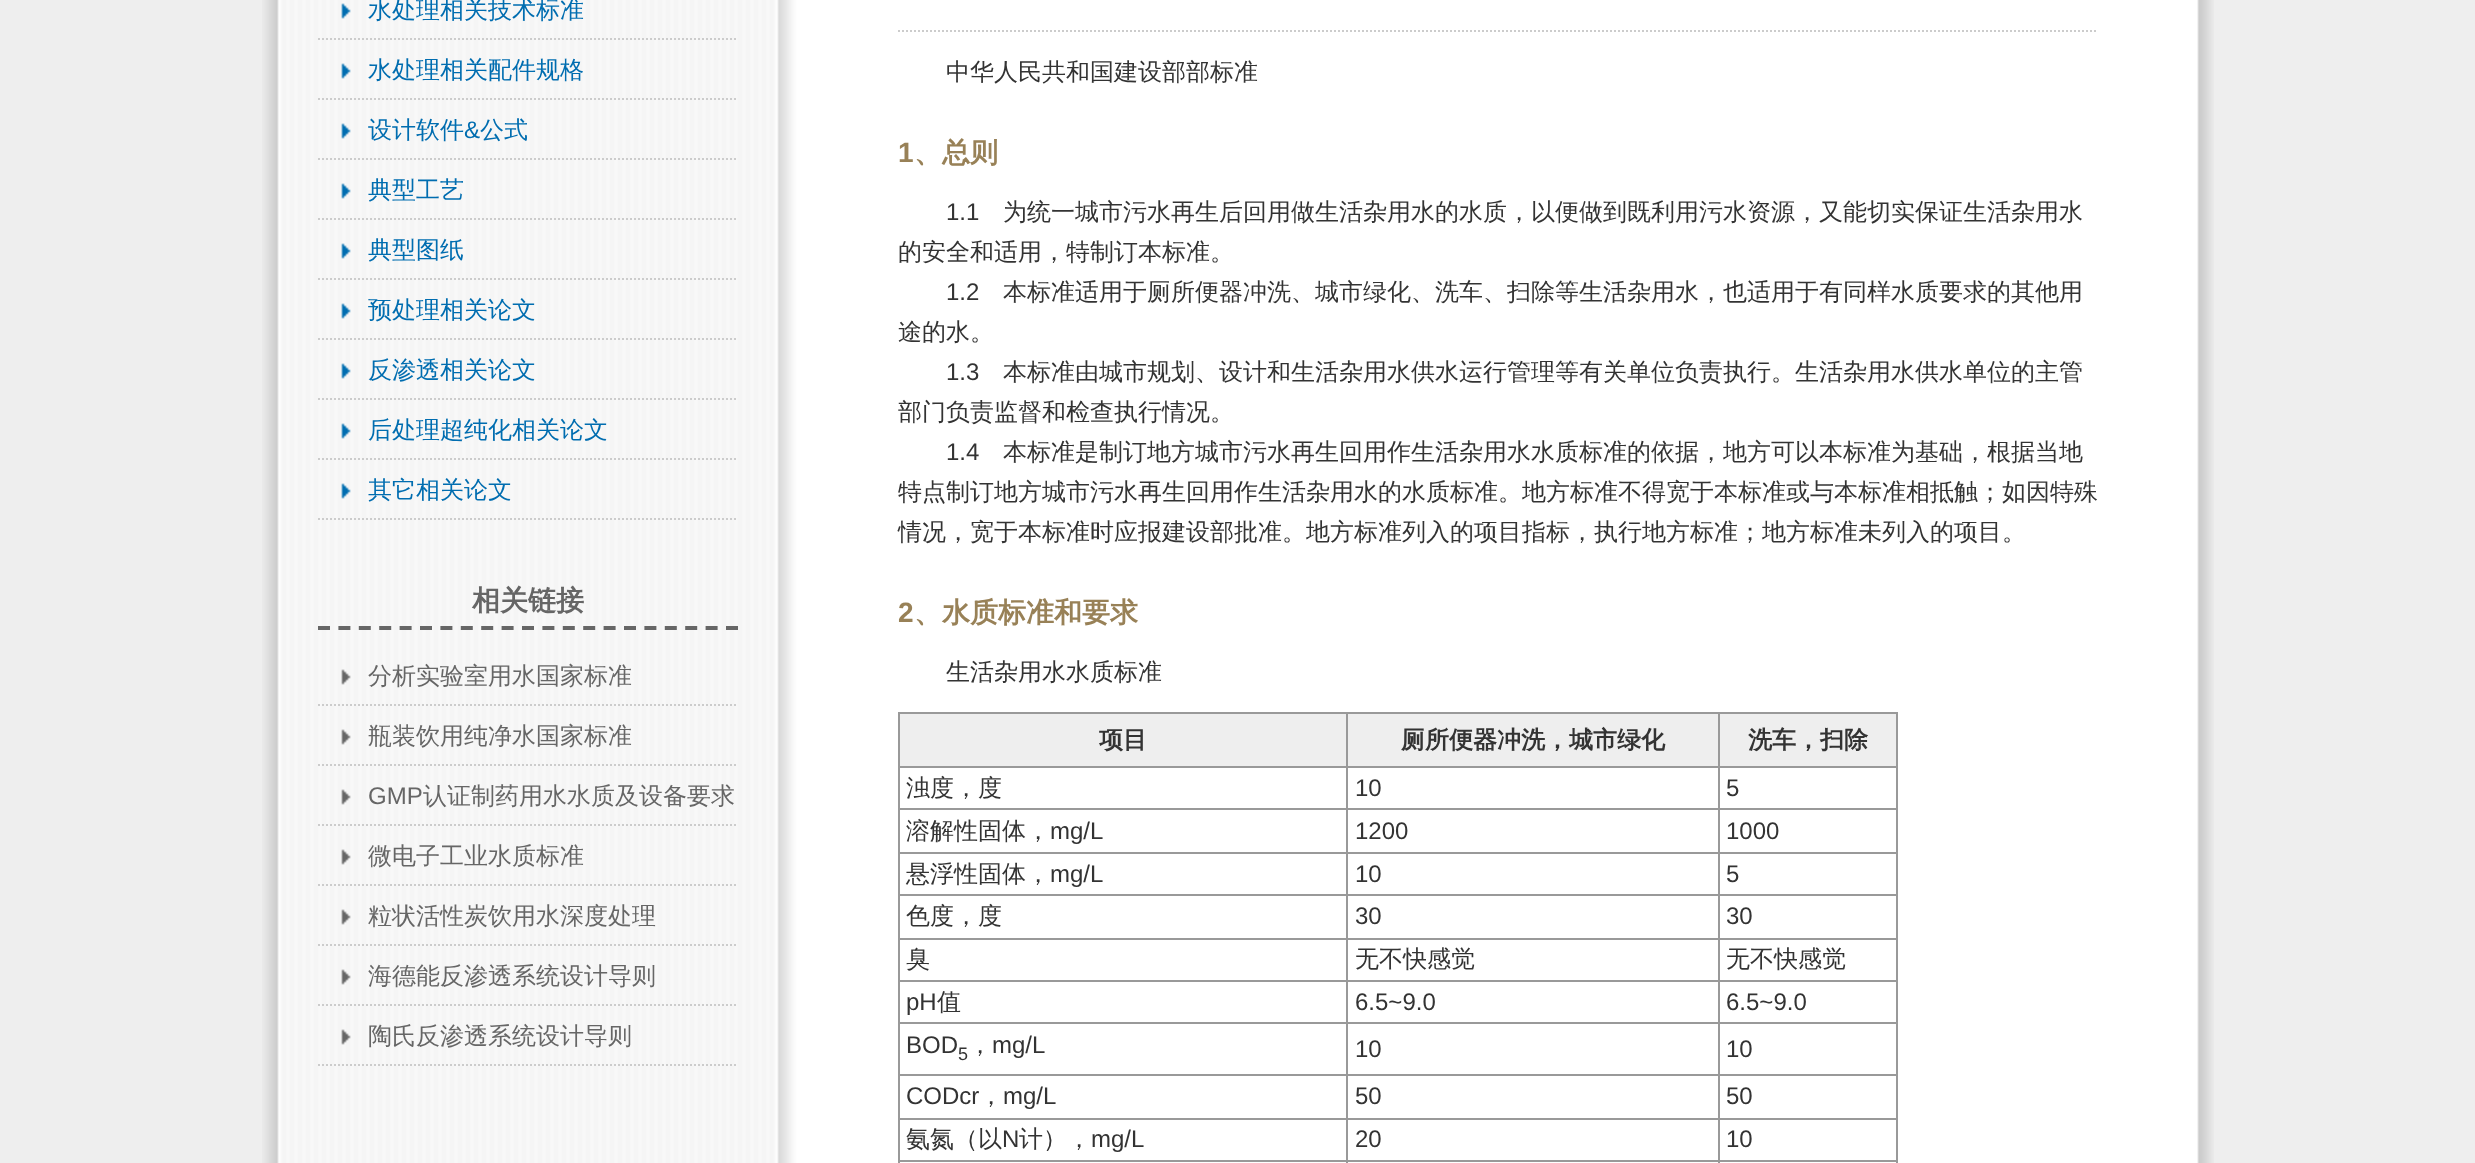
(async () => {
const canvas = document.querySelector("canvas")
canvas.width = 2475
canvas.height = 1163
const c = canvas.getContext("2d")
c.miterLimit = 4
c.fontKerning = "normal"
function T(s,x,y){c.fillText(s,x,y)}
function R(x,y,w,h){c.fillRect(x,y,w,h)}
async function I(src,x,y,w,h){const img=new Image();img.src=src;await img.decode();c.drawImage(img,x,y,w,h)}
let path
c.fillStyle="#eee"
R(0,0,2475,1163)
await I("1.png",262,0,1952,1163)
path = new Path2D("M318 39h420")
c.strokeStyle="#ccc"
c.lineWidth=2
c.setLineDash([2,2])
c.stroke(path)
await I("2.png",341,3,10,16)
c.font="500 24px WenQuanYi Zen Hei"
c.fillStyle="#006db0"
T("水处理相关技术标准",368,18)
path = new Path2D("M318 99h420")
c.stroke(path)
await I("2.png",341,63,10,16)
T("水处理相关配件规格",368,78)
path = new Path2D("M318 159h420")
c.stroke(path)
await I("2.png",341,123,10,16)
T("设计软件",368,138)
c.font="24px Liberation Sans"
T("&",464,138)
c.font="500 24px WenQuanYi Zen Hei"
T("公式",480,138)
path = new Path2D("M318 219h420")
c.stroke(path)
await I("2.png",341,183,10,16)
T("典型工艺",368,198)
path = new Path2D("M318 279h420")
c.stroke(path)
await I("2.png",341,243,10,16)
T("典型图纸",368,258)
path = new Path2D("M318 339h420")
c.stroke(path)
await I("2.png",341,303,10,16)
T("预处理相关论文",368,318)
path = new Path2D("M318 399h420")
c.stroke(path)
await I("2.png",341,363,10,16)
T("反渗透相关论文",368,378)
path = new Path2D("M318 459h420")
c.stroke(path)
await I("2.png",341,423,10,16)
T("后处理超纯化相关论文",368,438)
path = new Path2D("M318 519h420")
c.stroke(path)
await I("2.png",341,483,10,16)
T("其它相关论文",368,498)
path = new Path2D("M318 628h420")
c.strokeStyle="#666"
c.lineWidth=4
c.setLineDash([12,8.4])
c.stroke(path)
c.font="bold 28px WenQuanYi Zen Hei"
c.fillStyle="#666"
T("相关链接",472,610)
path = new Path2D("M318 705h420")
c.strokeStyle="#ccc"
c.lineWidth=2
c.setLineDash([2,2])
c.stroke(path)
await I("3.png",341,669,10,16)
c.font="500 24px WenQuanYi Zen Hei"
T("分析实验室用水国家标准",368,684)
path = new Path2D("M318 765h420")
c.stroke(path)
await I("3.png",341,729,10,16)
T("瓶装饮用纯净水国家标准",368,744)
path = new Path2D("M318 825h420")
c.stroke(path)
await I("3.png",341,789,10,16)
c.font="24px Liberation Sans"
T("GMP",368,804)
c.font="500 24px WenQuanYi Zen Hei"
T("认证制药用水水质及设备要求",423,804)
path = new Path2D("M318 885h420")
c.stroke(path)
await I("3.png",341,849,10,16)
T("微电子工业水质标准",368,864)
path = new Path2D("M318 945h420")
c.stroke(path)
await I("3.png",341,909,10,16)
T("粒状活性炭饮用水深度处理",368,924)
path = new Path2D("M318 1005h420")
c.stroke(path)
await I("3.png",341,969,10,16)
T("海德能反渗透系统设计导则",368,984)
path = new Path2D("M318 1065h420")
c.stroke(path)
await I("3.png",341,1029,10,16)
T("陶氏反渗透系统设计导则",368,1044)
path = new Path2D("M898 31h1200")
c.stroke(path)
c.fillStyle="#333"
T("中华人民共和国建设部部标准",946,80)
c.font="bold 28px Liberation Sans"
c.fillStyle="#988157"
T("1",898,162)
c.font="bold 28px WenQuanYi Zen Hei"
T("、总则",914,162)
c.font="24px Liberation Sans"
c.fillStyle="#333"
T("1.1",946,220)
c.font="500 24px WenQuanYi Zen Hei"
T("为统一城市污水再生后回用做生活杂用水的水质，以便做到既利用污水资源，又能切实保证生活杂用水",1003,220)
T("的安全和适用，特制订本标准。",898,260)
c.font="24px Liberation Sans"
T("1.2",946,300)
c.font="500 24px WenQuanYi Zen Hei"
T("本标准适用于厕所便器冲洗、城市绿化、洗车、扫除等生活杂用水，也适用于有同样水质要求的其他用",1003,300)
T("途的水。",898,340)
c.font="24px Liberation Sans"
T("1.3",946,380)
c.font="500 24px WenQuanYi Zen Hei"
T("本标准由城市规划、设计和生活杂用水供水运行管理等有关单位负责执行。生活杂用水供水单位的主管",1003,380)
T("部门负责监督和检查执行情况。",898,420)
c.font="24px Liberation Sans"
T("1.4",946,460)
c.font="500 24px WenQuanYi Zen Hei"
T("本标准是制订地方城市污水再生回用作生活杂用水水质标准的依据，地方可以本标准为基础，根据当地",1003,460)
T("特点制订地方城市污水再生回用作生活杂用水的水质标准。地方标准不得宽于本标准或与本标准相抵触；如因特殊",898,500)
T("情况，宽于本标准时应报建设部批准。地方标准列入的项目指标，执行地方标准；地方标准未列入的项目。",898,540)
c.font="bold 28px Liberation Sans"
c.fillStyle="#988157"
T("2",898,622)
c.font="bold 28px WenQuanYi Zen Hei"
T("、水质标准和要求",914,622)
c.font="500 24px WenQuanYi Zen Hei"
c.fillStyle="#333"
T("生活杂用水水质标准",946,680)
c.fillStyle="#999"
R(898,712,1000,451)
c.fillStyle="#eee"
R(900,714,446,52)
c.font="bold 24px WenQuanYi Zen Hei"
c.fillStyle="#333"
T("项目",1099,748)
c.fillStyle="#eee"
R(1348,714,370,52)
c.fillStyle="#333"
T("厕所便器冲洗，城市绿化",1401,748)
c.fillStyle="#eee"
R(1720,714,176,52)
c.fillStyle="#333"
T("洗车，扫除",1748,748)
c.fillStyle="#fff"
R(900,768,446,40)
c.font="500 24px WenQuanYi Zen Hei"
c.fillStyle="#333"
T("浊度，度",906,796)
c.fillStyle="#fff"
R(1348,768,370,40)
c.font="24px Liberation Sans"
c.fillStyle="#333"
T("10",1355,796)
c.fillStyle="#fff"
R(1720,768,176,40)
c.fillStyle="#333"
T("5",1726,796)
c.fillStyle="#fff"
R(900,810,446,42)
c.font="500 24px WenQuanYi Zen Hei"
c.fillStyle="#333"
T("溶解性固体，",906,839)
c.font="24px Liberation Sans"
T("mg/L",1050,839)
c.fillStyle="#fff"
R(1348,810,370,42)
c.fillStyle="#333"
T("1200",1355,839)
c.fillStyle="#fff"
R(1720,810,176,42)
c.fillStyle="#333"
T("1000",1726,839)
c.fillStyle="#fff"
R(900,854,446,40)
c.font="500 24px WenQuanYi Zen Hei"
c.fillStyle="#333"
T("悬浮性固体，",906,882)
c.font="24px Liberation Sans"
T("mg/L",1050,882)
c.fillStyle="#fff"
R(1348,854,370,40)
c.fillStyle="#333"
T("10",1355,882)
c.fillStyle="#fff"
R(1720,854,176,40)
c.fillStyle="#333"
T("5",1726,882)
c.fillStyle="#fff"
R(900,896,446,42)
c.font="500 24px WenQuanYi Zen Hei"
c.fillStyle="#333"
T("色度，度",906,924)
c.fillStyle="#fff"
R(1348,896,370,42)
c.font="24px Liberation Sans"
c.fillStyle="#333"
T("30",1355,924)
c.fillStyle="#fff"
R(1720,896,176,42)
c.fillStyle="#333"
T("30",1726,924)
c.fillStyle="#fff"
R(900,940,446,40)
c.font="500 24px WenQuanYi Zen Hei"
c.fillStyle="#333"
T("臭",906,967)
c.fillStyle="#fff"
R(1348,940,370,40)
c.fillStyle="#333"
T("无不快感觉",1355,967)
c.fillStyle="#fff"
R(1720,940,176,40)
c.fillStyle="#333"
T("无不快感觉",1726,967)
c.fillStyle="#fff"
R(900,982,446,40)
c.font="24px Liberation Sans"
c.fillStyle="#333"
T("pH",906,1010)
c.font="500 24px WenQuanYi Zen Hei"
T("值",937,1010)
c.fillStyle="#fff"
R(1348,982,370,40)
c.font="24px Liberation Sans"
c.fillStyle="#333"
T("6.5~9.0",1355,1010)
c.fillStyle="#fff"
R(1720,982,176,40)
c.fillStyle="#333"
T("6.5~9.0",1726,1010)
c.fillStyle="#fff"
R(900,1024,446,50)
c.fillStyle="#333"
T("BOD",906,1053)
c.font="18px Liberation Sans"
T("5",958,1060)
c.font="500 24px WenQuanYi Zen Hei"
T("，",968,1053)
c.font="24px Liberation Sans"
T("mg/L",992,1053)
c.fillStyle="#fff"
R(1348,1024,370,50)
c.fillStyle="#333"
T("10",1355,1057)
c.fillStyle="#fff"
R(1720,1024,176,50)
c.fillStyle="#333"
T("10",1726,1057)
c.fillStyle="#fff"
R(900,1076,446,42)
c.fillStyle="#333"
T("CODcr",906,1104)
c.font="500 24px WenQuanYi Zen Hei"
T("，",979,1104)
c.font="24px Liberation Sans"
T("mg/L",1003,1104)
c.fillStyle="#fff"
R(1348,1076,370,42)
c.fillStyle="#333"
T("50",1355,1104)
c.fillStyle="#fff"
R(1720,1076,176,42)
c.fillStyle="#333"
T("50",1726,1104)
c.fillStyle="#fff"
R(900,1120,446,40)
c.font="500 24px WenQuanYi Zen Hei"
c.fillStyle="#333"
T("氨氮（以",906,1147)
c.font="24px Liberation Sans"
T("N",1002,1147)
c.font="500 24px WenQuanYi Zen Hei"
T("计），",1019,1147)
c.font="24px Liberation Sans"
T("mg/L",1091,1147)
c.fillStyle="#fff"
R(1348,1120,370,40)
c.fillStyle="#333"
T("20",1355,1147)
c.fillStyle="#fff"
R(1720,1120,176,40)
c.fillStyle="#333"
T("10",1726,1147)
c.fillStyle="#fff"
R(900,1162,446,1)
R(1348,1162,370,1)
R(1720,1162,176,1)
})()
